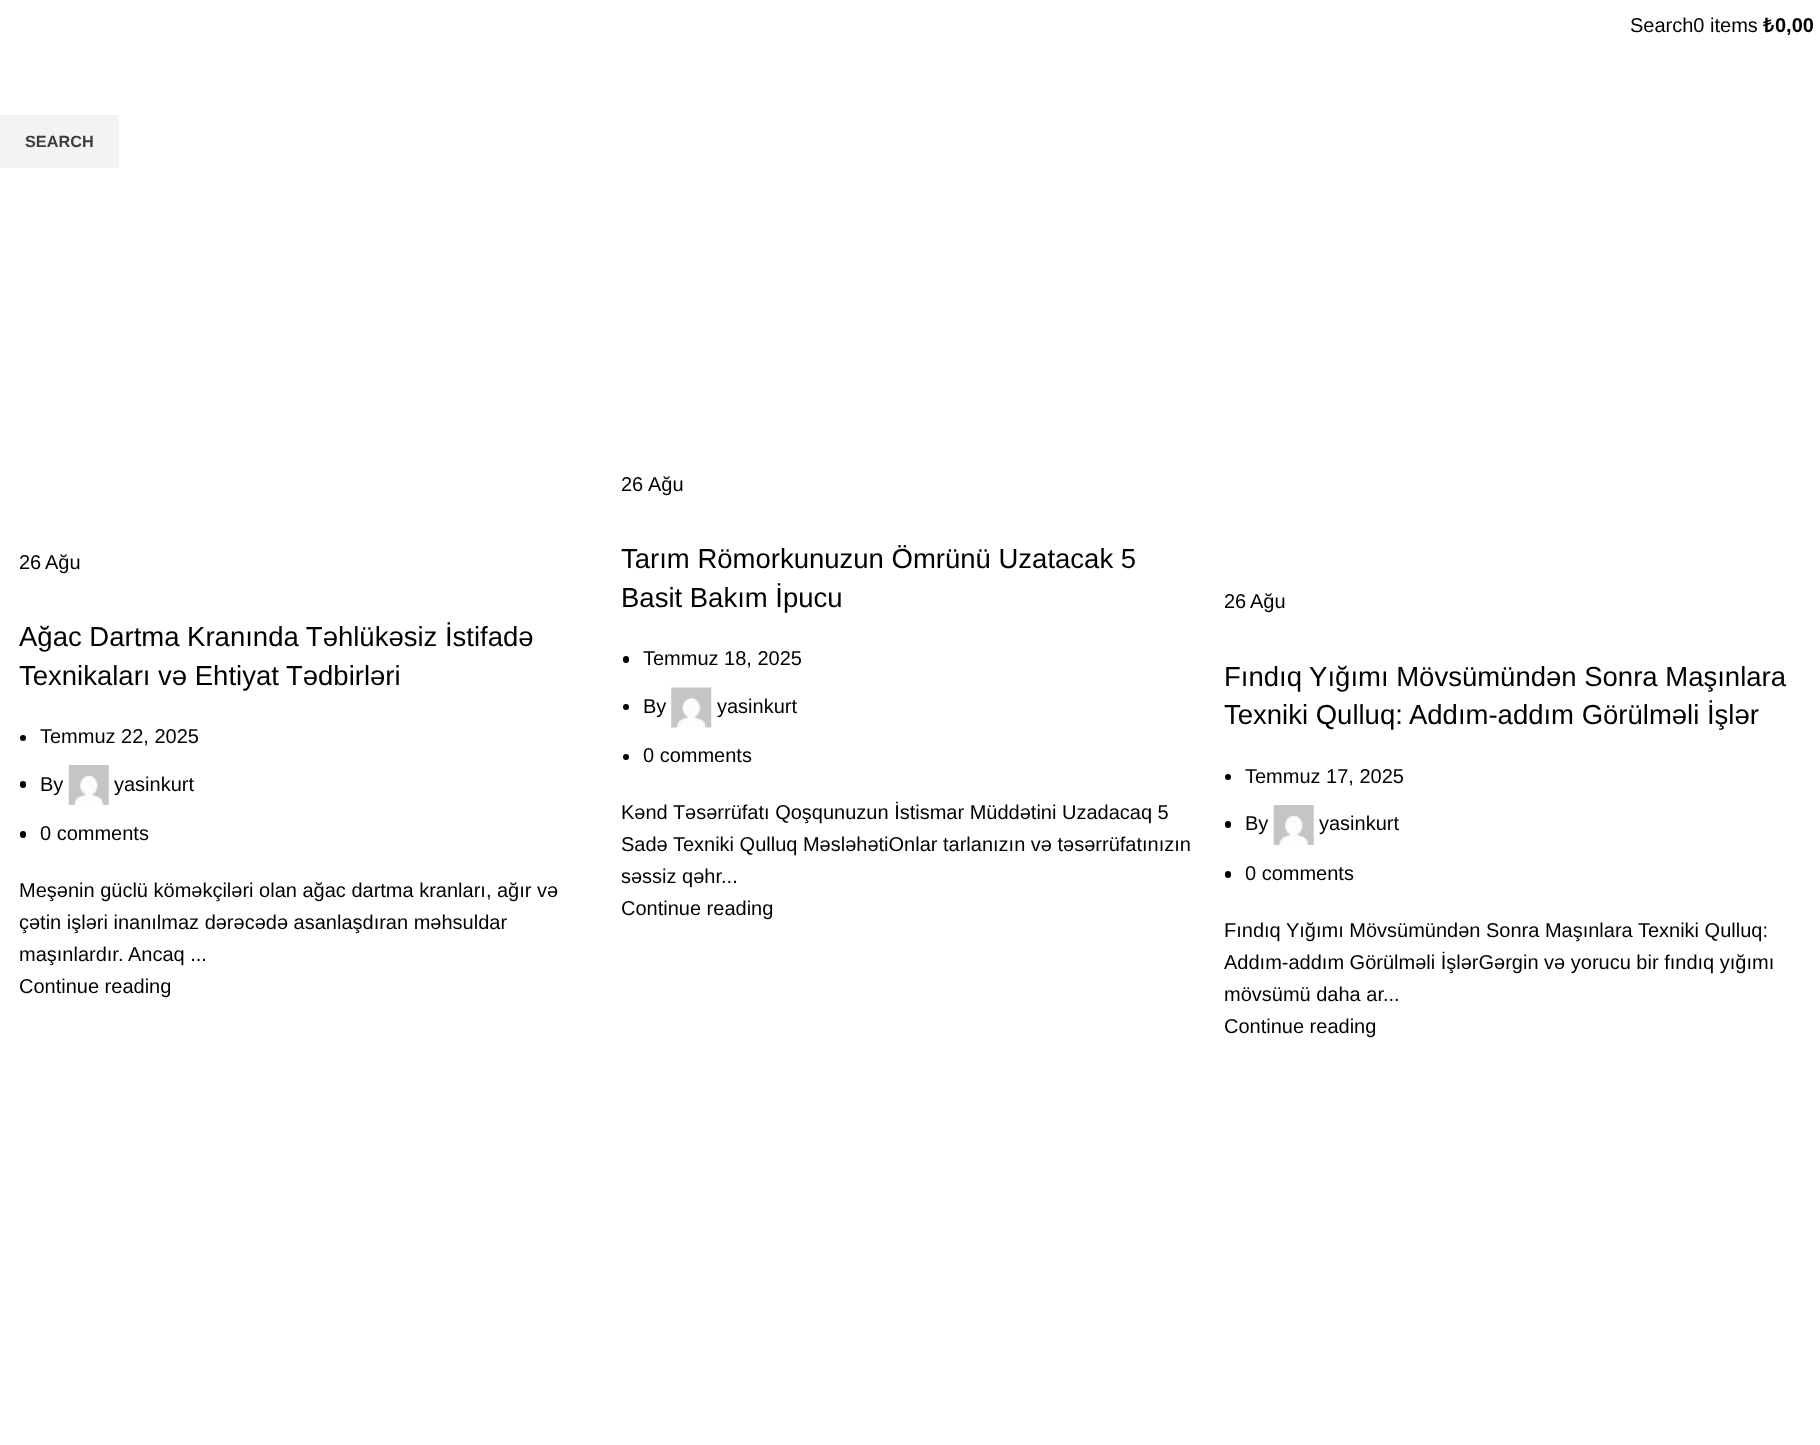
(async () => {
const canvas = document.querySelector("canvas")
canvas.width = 1820
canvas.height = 1445
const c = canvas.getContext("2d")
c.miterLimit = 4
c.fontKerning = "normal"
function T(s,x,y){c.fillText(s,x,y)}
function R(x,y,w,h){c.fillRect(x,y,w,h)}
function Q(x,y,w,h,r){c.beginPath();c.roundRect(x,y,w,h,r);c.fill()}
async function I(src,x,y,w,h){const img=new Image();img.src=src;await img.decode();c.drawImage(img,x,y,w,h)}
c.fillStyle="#fff"
R(0,0,1820,1445)
c.font="20px Liberation Sans"
c.fillStyle="#000"
T("Search0 items",1630,32)
c.font="600 20px Noto Sans"
T("₺",1763,32)
c.font="bold 20px Liberation Sans"
T("0,00",1775,32)
c.font="20px Liberation Sans"
T("26",19,569)
T("Ağu",45,569)
c.font="27.5px Liberation Sans"
T("Ağac Dartma Kranında Təhlükəsiz İstifadə",19,646)
T("Texnikaları və Ehtiyat Tədbirləri",19,685)
c.beginPath()
c.arc(23,738,3,0,7)
c.fill()
c.font="20px Liberation Sans"
T("Temmuz 22, 2025",40,743)
Q(20,781,6,7,3)
T("By",40,791)
await I("1.png",68,765,41,40)
T("yasinkurt",114,791)
Q(20,831,6,7,3)
T("0 comments",40,840)
T("Meşənin güclü köməkçiləri olan ağac dartma kranları, ağır və",19,897)
T("çətin işləri inanılmaz dərəcədə asanlaşdıran məhsuldar",19,929)
T("maşınlardır. Ancaq ...",19,961)
T("Continue reading",19,993)
T("26",621,491)
T("Ağu",648,491)
c.font="27.5px Liberation Sans"
T("Tarım Römorkunuzun Ömrünü Uzatacak 5",621,568)
T("Basit Bakım İpucu",621,607)
Q(623,656,6,7,3)
c.font="20px Liberation Sans"
T("Temmuz 18, 2025",643,665)
c.beginPath()
c.arc(626,707,3,0,7)
c.fill()
T("By",643,713)
await I("2.png",671,687,41,41)
T("yasinkurt",717,713)
c.beginPath()
c.arc(626,757,3,0,7)
c.fill()
T("0 comments",643,762)
T("Kənd Təsərrüfatı Qoşqunuzun İstismar Müddətini Uzadacaq 5",621,819)
T("Sadə Texniki Qulluq MəsləhətiOnlar tarlanızın və təsərrüfatınızın",621,851)
T("səssiz qəhr...",621,883)
T("Continue reading",621,915)
T("26",1224,608)
T("Ağu",1250,608)
c.font="27.5px Liberation Sans"
T("Fındıq Yığımı Mövsümündən Sonra Maşınlara",1224,686)
T("Texniki Qulluq: Addım-addım Görülməli İşlər",1224,724)
c.beginPath()
c.arc(1228,777,3,0,7)
c.fill()
c.font="20px Liberation Sans"
T("Temmuz 17, 2025",1245,783)
Q(1225,821,6,7,3)
T("By",1245,830)
await I("1.png",1273,805,41,40)
T("yasinkurt",1319,830)
Q(1225,871,6,7,3)
T("0 comments",1245,880)
T("Fındıq Yığımı Mövsümündən Sonra Maşınlara Texniki Qulluq:",1224,937)
T("Addım-addım Görülməli İşlərGərgin və yorucu bir fındıq yığımı",1224,969)
T("mövsümü daha ar...",1224,1001)
T("Continue reading",1224,1033)
c.fillStyle="#f3f3f3"
R(0,115,119,53)
c.font="bold 16.25px Liberation Sans"
c.fillStyle="#3e3e3e"
T("SEARCH",25,147)
})()
